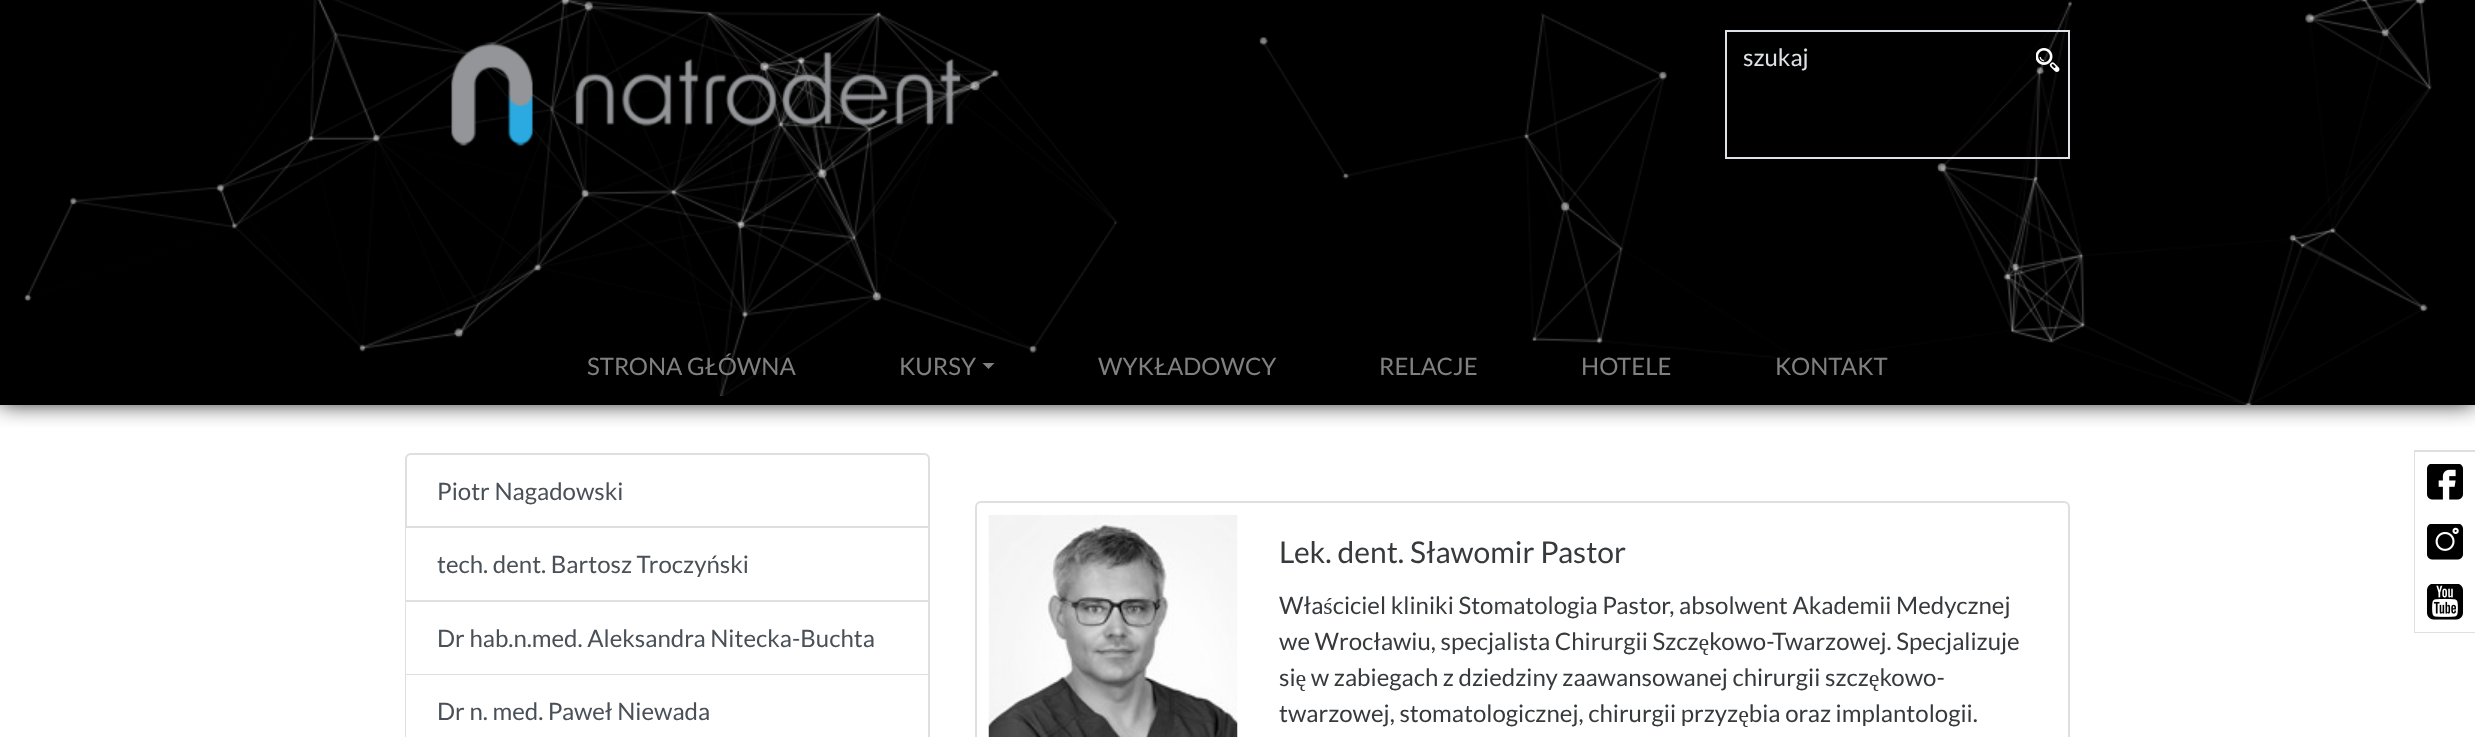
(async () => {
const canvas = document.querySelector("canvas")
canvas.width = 2475
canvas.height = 737
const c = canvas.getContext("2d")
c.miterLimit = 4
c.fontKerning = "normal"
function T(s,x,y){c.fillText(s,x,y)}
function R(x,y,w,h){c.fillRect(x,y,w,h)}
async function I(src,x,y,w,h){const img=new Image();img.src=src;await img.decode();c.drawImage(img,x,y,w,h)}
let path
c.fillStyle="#000"
R(0,0,2475,737)
c.fillStyle="#fff"
R(0,405,2475,332)
c.save()
c.beginPath()
c.rect(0,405,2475,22)
c.clip()
c.fillStyle="#000"
c.filter="blur(12px)"
c.beginPath()
c.rect(0,-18,2475,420)
c.fill()
c.filter="none"
c.restore()
await I("1.png",24,0,2408,405)
await I("2.png",451,41,510,105)
c.strokeStyle="#dee2e6"
c.lineWidth=2
c.strokeRect(1726,31,343,127)
c.font="24px Lato"
c.fillStyle="#dee2e6"
T("szukaj",1743,66)
await I("3.png",2036,48,24,24)
c.fillStyle="#000"
R(719,396,5,4)
c.fillStyle="#808080"
T("STRONA GŁÓWNA",587,375)
T("KURSY",899,375)
path = new Path2D("M982.5 363h12l-6 6z")
c.fill(path)
T("WYKŁADOWCY",1098,375)
T("RELACJE",1379,375)
T("HOTELE",1581,375)
T("KONTAKT",1775,375)
c.beginPath()
c.roundRect(406,454,523,73,[5,5,0,0])
c.strokeStyle="#dfdfdf"
c.stroke()
c.fillStyle="#495057"
T("Piotr Nagadowski",437,500)
c.fillStyle="#dfdfdf"
path = new Path2D("M930 528v74l-2-2v-72z")
c.fill(path)
c.fillStyle="#0000001f"
path = new Path2D("M930 602h-525l1-2h522z")
c.fill(path)
path = new Path2D("M405 602v-74h1v72z")
c.fill(path)
c.fillStyle="#495057"
T("tech. dent. Bartosz Troczyński",437,573)
c.fillStyle="#dfdfdf"
path = new Path2D("M930 602v73l-2-1v-72z")
c.fill(path)
c.fillStyle="#0000001f"
path = new Path2D("M930 675h-525l1-1h522z")
c.fill(path)
path = new Path2D("M405 675v-73h1v72z")
c.fill(path)
c.fillStyle="#495057"
T("Dr hab.n.med. Aleksandra Nitecka-Buchta",437,647)
c.fillStyle="#dfdfdf"
path = new Path2D("M930 675v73l-2-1v-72z")
c.fill(path)
path = new Path2D("M405 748v-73h1v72z")
c.fill(path)
c.fillStyle="#495057"
T("Dr n. med. Paweł Niewada",437,720)
c.beginPath()
c.roundRect(976,502,1093,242,5)
c.stroke()
await I("4.png",988,515,250,222)
c.font="30px Lato"
c.fillStyle="#373a3c"
T("Lek. dent. Sławomir Pastor",1279,563)
c.font="24px Lato"
T("Właściciel kliniki Stomatologia Pastor, absolwent Akademii Medycznej",1279,614)
T("we Wrocławiu, specjalista Chirurgii Szczękowo-Twarzowej. Specjalizuje",1279,650)
T("się w zabiegach z dziedziny zaawansowanej chirurgii szczękowo-",1279,686)
T("twarzowej, stomatologicznej, chirurgii przyzębia oraz implantologii.",1279,722)
c.fillStyle="#dfdfdf"
path = new Path2D("M2414 450h61v2h-60z")
c.fill(path)
path = new Path2D("M2475 633h-61l1-1h60z")
c.fill(path)
c.fillStyle="#0000001f"
path = new Path2D("M2414 633v-183l1 2v180z")
c.fill(path)
await I("5.png",2427,464,36,36)
await I("6.png",2427,524,36,36)
await I("7.png",2427,584,36,36)
})()
